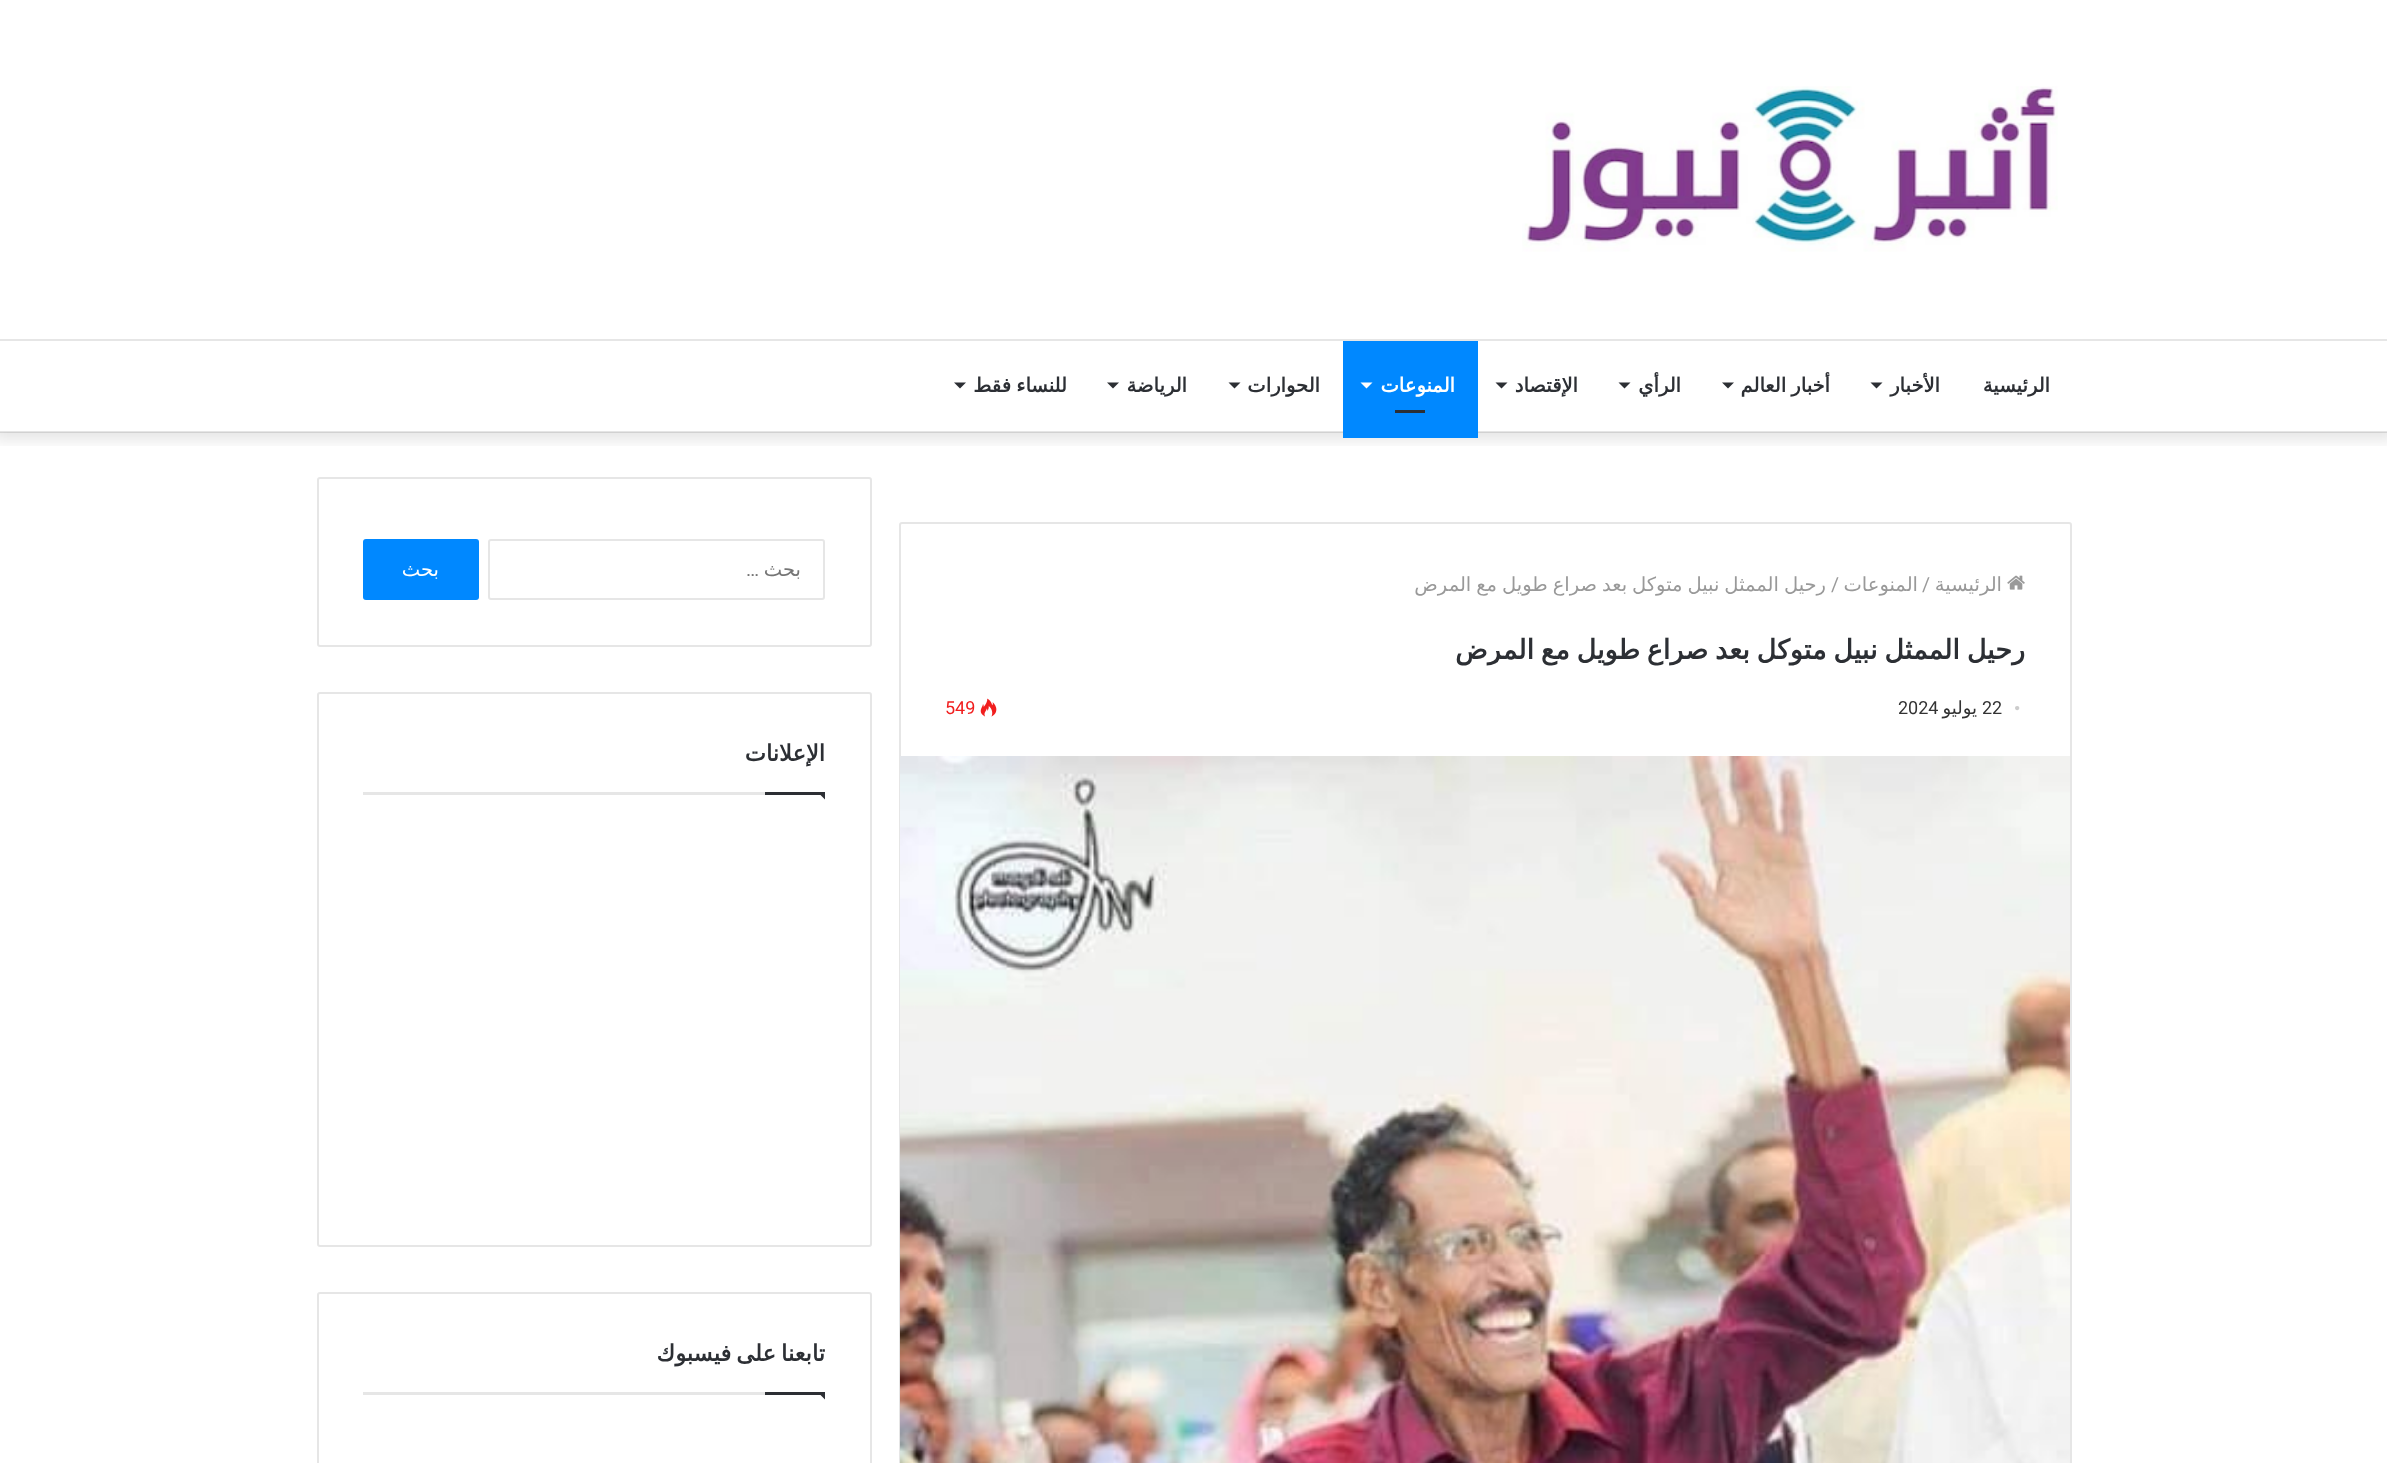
(async () => {
const canvas = document.querySelector("canvas")
canvas.width = 2387
canvas.height = 1463
const c = canvas.getContext("2d")
c.miterLimit = 4
c.fontKerning = "normal"
function T(s,x,y){c.fillText(s,x,y)}
function R(x,y,w,h){c.fillRect(x,y,w,h)}
function Q(x,y,w,h,r){c.beginPath();c.roundRect(x,y,w,h,r);c.fill()}
async function I(src,x,y,w,h){const img=new Image();img.src=src;await img.decode();c.drawImage(img,x,y,w,h)}
let path
c.fillStyle="#fff"
R(0,0,2387,1463)
c.save()
c.beginPath()
c.rect(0,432,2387,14)
c.clip()
c.fillStyle="#0000001a"
c.filter="blur(7.5px)"
c.beginPath()
c.rect(-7,-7,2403,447)
c.fill()
c.filter="none"
c.restore()
await I("1.png",1522,86,536,166)
c.fillStyle="#e6e6e6"
R(0,339,2387,2)
c.fillStyle="#0000001a"
R(0,431,2387,2)
c.direction="rtl"
c.font="bold 19.5px DejaVu Sans"
c.fillStyle="#2c2f34"
T("الرئيسية",2050,392)
T("الأخبار",1940,392)
path = new Path2D("M1870.5 382.5h12l-6 6z")
c.fill(path)
c.wordSpacing="-1px"
T("أخبار العالم",1830,392)
path = new Path2D("M1722 382.5h12l-6 6z")
c.fill(path)
c.wordSpacing="0px"
T("الرأي",1681,392)
path = new Path2D("M1618.5 382.5h12l-6 6z")
c.fill(path)
T("الإقتصاد",1578,392)
path = new Path2D("M1495.5 382.5h12l-6 6z")
c.fill(path)
c.fillStyle="#08f"
R(1343,341,135,97)
c.fillStyle="#fff"
T("المنوعات",1455,392)
path = new Path2D("M1360.5 382.5h12l-6 6z")
c.fill(path)
c.fillStyle="#2c2f34"
R(1395,410,30,3)
T("الحوارات",1320,392)
path = new Path2D("M1228.5 382.5h12l-6 6z")
c.fill(path)
T("الرياضة",1187,392)
path = new Path2D("M1107 382.5h12l-6 6z")
c.fill(path)
c.wordSpacing="-1px"
T("للنساء فقط",1067,392)
path = new Path2D("M954 382.5h12l-6 6z")
c.fill(path)
c.beginPath()
c.roundRect(900,523,1171,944,2)
c.strokeStyle="#e6e6e6"
c.lineWidth=2
c.stroke()
await I("2.png",2007,575,18,15)
c.wordSpacing="0px"
c.font="19.5px DejaVu Sans"
c.fillStyle="#999"
T("الرئيسية",2002,591)
T("المنوعات",1918,591)
c.direction="ltr"
c.font="19.5px Roboto"
T("/",1831,591)
c.wordSpacing="-1.25px"
c.direction="rtl"
c.font="19.5px DejaVu Sans"
T("رحيل الممثل نبيل متوكل بعد صراع طويل مع المرض",1826,591)
c.wordSpacing="0px"
c.direction="ltr"
c.font="19.5px Roboto"
T("/",1922,591)
c.wordSpacing="-1.75px"
c.direction="rtl"
c.font="bold 27px DejaVu Sans"
c.fillStyle="#2c2f34"
T("رحيل الممثل نبيل متوكل بعد صراع طويل مع المرض",2025,659)
c.wordSpacing="0px"
c.direction="ltr"
c.font="18px Liberation Serif"
c.fillStyle="#ccc"
T("•",2014,714)
c.font="18px Roboto"
c.fillStyle="#333"
T("22",1982,714)
c.direction="rtl"
c.font="18px DejaVu Sans"
T("يوليو",1977,714)
c.direction="ltr"
c.font="18px Roboto"
T("2024",1898,714)
await I("3.png",980,698,17,19)
c.fillStyle="#f11e1e"
T("549",945,714)
await I("4.png",900,756,1170,707)
c.beginPath()
c.roundRect(318,478,553,168,2)
c.stroke()
c.beginPath()
c.roundRect(489,540,335,59,2)
c.stroke()
c.direction="rtl"
c.font="19.5px DejaVu Sans"
c.fillStyle="#757575"
T("بحث",801,576)
c.font="19.5px Roboto"
T("…",759,576)
c.fillStyle="#08f"
Q(363,539,116,61,3)
c.font="19.5px DejaVu Sans"
c.fillStyle="#fff"
T("بحث",439,576)
c.beginPath()
c.roundRect(318,693,553,553,2)
c.stroke()
c.fillStyle="#e6e6e6"
R(363,792,402,3)
c.font="bold 22.5px DejaVu Sans"
c.fillStyle="#2c2f34"
T("الإعلانات",825,761)
path = new Path2D("M817.5 792h7.5v7.5z")
c.fill(path)
R(765,792,60,3)
c.beginPath()
c.roundRect(318,1293,553,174,2)
c.stroke()
c.fillStyle="#e6e6e6"
R(363,1392,402,3)
c.wordSpacing="-2px"
c.fillStyle="#2c2f34"
T("تابعنا على فيسبوك",825,1361)
path = new Path2D("M817.5 1392h7.5v7.5z")
c.fill(path)
R(765,1392,60,3)
})()
